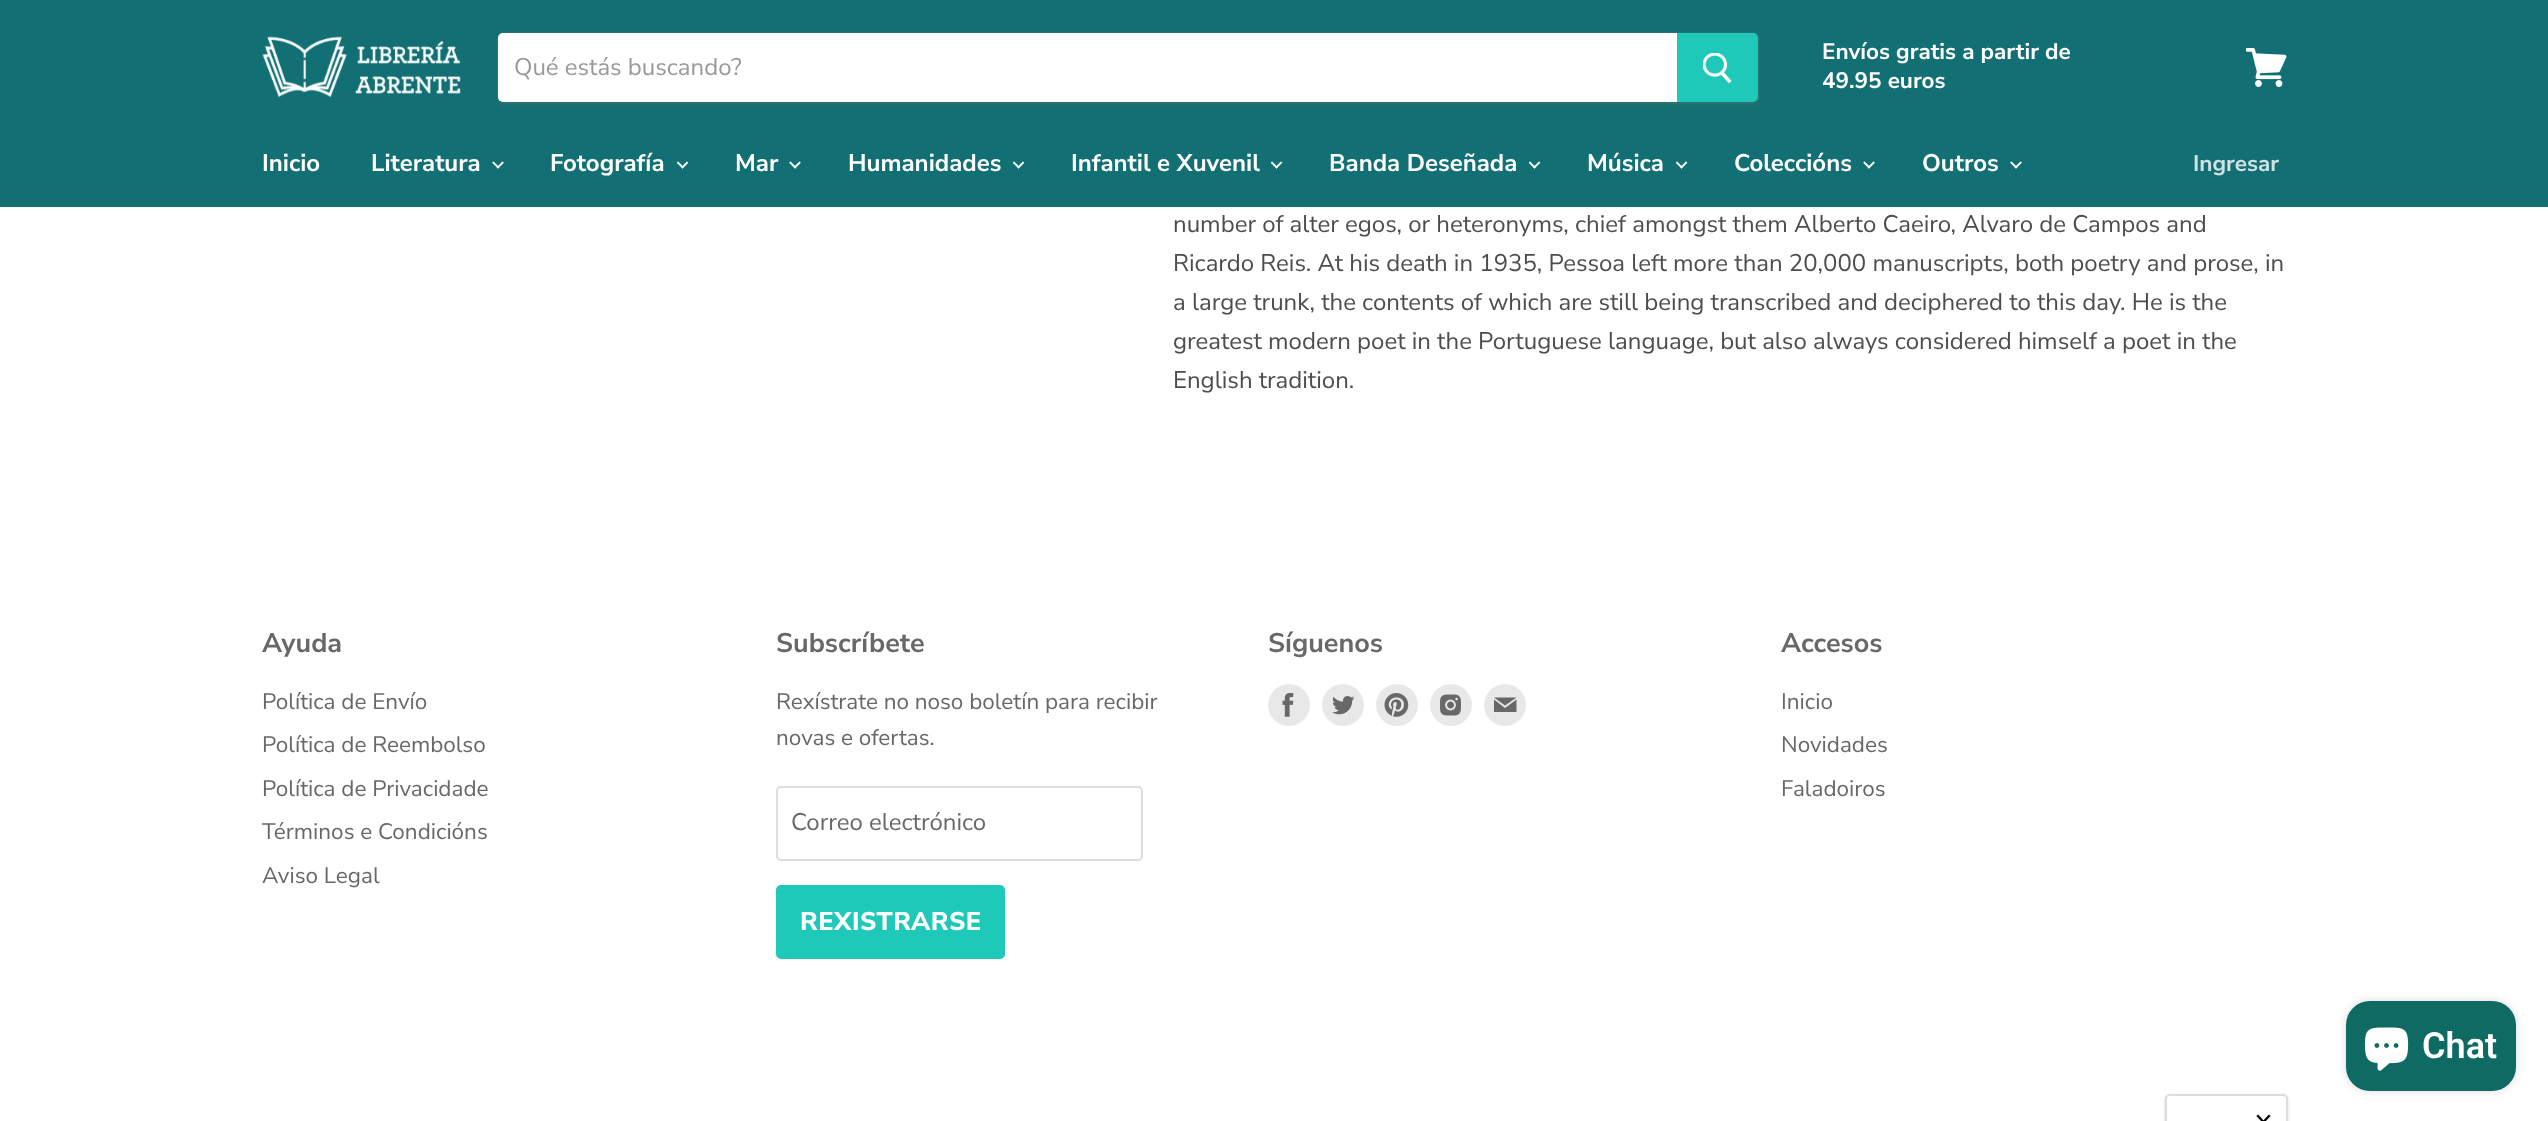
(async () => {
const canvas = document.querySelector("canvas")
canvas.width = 2548
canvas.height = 1121
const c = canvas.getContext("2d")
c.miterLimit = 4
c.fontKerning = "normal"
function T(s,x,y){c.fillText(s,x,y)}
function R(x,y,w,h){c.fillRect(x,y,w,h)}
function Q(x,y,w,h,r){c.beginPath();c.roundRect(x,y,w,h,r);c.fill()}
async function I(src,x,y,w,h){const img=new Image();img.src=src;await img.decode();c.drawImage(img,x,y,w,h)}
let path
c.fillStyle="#fff"
R(0,0,2548,1121)
c.fillStyle="#126f73"
R(0,0,2548,207)
await I("1.png",262,36,199,62)
c.save()
path = new Path2D("M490 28h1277v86h-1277zm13 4h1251c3.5 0 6 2.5 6 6v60c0 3.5-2.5 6-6 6h-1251c-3.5 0-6-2.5-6-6v-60c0-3.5 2.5-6 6-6z")
c.clip(path,"evenodd")
c.fillStyle="#8080801c"
c.filter="blur(2px)"
c.beginPath()
c.roundRect(497,35,1263,72,6)
c.fill()
c.filter="none"
c.restore()
c.beginPath()
c.roundRect(498,33,1261,70,5)
c.strokeStyle="#80808033"
c.lineWidth=2
c.stroke()
c.fillStyle="#fff"
c.beginPath()
c.roundRect(498,33,1179,69,[5,0,0,5])
c.fill()
c.font="24px Nunito Sans"
c.fillStyle="#999"
T("Qué estás buscando?",514,75)
c.fillStyle="#1fc9ba"
c.beginPath()
c.roundRect(1678,34,79,67,[0,4,4,0])
c.fill()
c.strokeStyle="#1fc9ba"
c.stroke()
await I("2.png",1703,53,29,31)
c.font="bold 22.5px Nunito Sans"
c.fillStyle="#fff"
T("Envíos gratis a partir de",1822,59)
T("49.95 euros",1822,88)
await I("3.png",2246,48,41,39)
c.font="bold 24px Nunito Sans"
T("Inicio",262,171)
T("Literatura",371,171)
await I("4.png",492,161,12,8)
T("Fotografía",550,171)
await I("5.png",677,161,12,8)
T("Mar",735,171)
await I("4.png",789,161,12,8)
T("Humanidades",848,171)
await I("5.png",1013,161,12,8)
T("Infantil e Xuvenil",1071,171)
await I("5.png",1271,161,12,8)
T("Banda Deseñada",1329,171)
await I("5.png",1529,161,12,8)
T("Música",1587,171)
await I("5.png",1676,161,12,8)
T("Coleccións",1734,171)
await I("4.png",1863,161,12,8)
T("Outros",1922,171)
await I("4.png",2010,161,12,8)
c.font="bold 22.5px Nunito Sans"
c.fillStyle="#d0e2e3"
T("Ingresar",2193,171)
c.font="24px Nunito Sans"
c.fillStyle="#4d4d4d"
T("number of alter egos, or heteronyms, chief amongst them Alberto Caeiro, Alvaro de Campos and",1173,232)
T("Ricardo Reis. At his death in 1935, Pessoa left more than 20,000 manuscripts, both poetry and prose, in",1173,271)
T("a large trunk, the contents of which are still being transcribed and deciphered to this day. He is the",1173,310)
T("greatest modern poet in the Portuguese language, but also always considered himself a poet in the",1173,349)
T("English tradition.",1173,388)
c.font="bold 27px Nunito Sans"
c.fillStyle="#686868"
T("Ayuda",262,652)
c.font="22.5px Nunito Sans"
T("Política de Envío",262,709)
T("Política de Reembolso",262,752)
T("Política de Privacidade",262,796)
T("Términos e Condicións",262,839)
T("Aviso Legal",262,883)
c.font="bold 27px Nunito Sans"
T("Subscríbete",776,652)
c.font="22.5px Nunito Sans"
T("Rexístrate no noso boletín para recibir",776,709)
T("novas e ofertas.",776,745)
c.beginPath()
c.roundRect(777,787,365,73,4)
c.strokeStyle="#ddd"
c.stroke()
c.font="24px Nunito Sans"
T("Correo electrónico",791,830)
c.fillStyle="#1fc9ba"
c.beginPath()
c.roundRect(777,886,227,72,4)
c.fill()
c.strokeStyle="#1fc9ba"
c.stroke()
c.letterSpacing="0.5px"
c.font="800 25.5px Nunito Sans"
c.fillStyle="#fff"
T("REXISTRARSE",800,930)
c.letterSpacing="0px"
c.font="bold 27px Nunito Sans"
c.fillStyle="#686868"
T("Síguenos",1268,652)
c.fillStyle="#e8e8e8"
c.beginPath()
c.arc(1289,705,21,0,7)
c.fill()
await I("6.png",1282,693,12,24)
c.beginPath()
c.arc(1343,705,21,0,7)
c.fill()
await I("7.png",1332,696,23,19)
c.beginPath()
c.arc(1397,705,21,0,7)
c.fill()
await I("8.png",1384,693,25,24)
c.beginPath()
c.arc(1451,705,21,0,7)
c.fill()
await I("9.png",1440,694,21,22)
c.beginPath()
c.arc(1505,705,21,0,7)
c.fill()
c.fillStyle="#686868"
path = new Path2D("M1516.5 697.5h-22.5l11 8zm-11.5 10.5l-11-8.5v12.5h22.5v-12.5z")
c.fill(path,"evenodd")
T("Accesos",1781,652)
c.font="22.5px Nunito Sans"
T("Inicio",1781,709)
T("Novidades",1781,752)
T("Faladoiros",1781,796)
c.fillStyle="#00000026"
c.filter="blur(1.5px)"
c.beginPath()
c.roundRect(2165,1095,123,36,5)
c.fill()
c.filter="none"
c.fillStyle="#fff"
c.beginPath()
c.roundRect(2166,1095,121,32,4)
c.fill()
c.strokeStyle="#ddd"
c.stroke()
path = new Path2D("M2263.5 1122l5.5-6m-5.5 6l-5.5-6")
c.strokeStyle="#000"
c.lineWidth=2.3
c.lineCap="square"
c.stroke(path)
c.fillStyle="#00000026"
c.filter="blur(4px)"
c.beginPath()
c.roundRect(2346,1001,170,90,24)
c.fill()
c.filter="none"
c.fillStyle="#0e6a63"
Q(2346,1001,170,90,24)
await I("10.png",2364,1027,45,44)
c.font="600 36px Roboto"
c.fillStyle="#fff"
T("Chat",2422,1058)
})()
